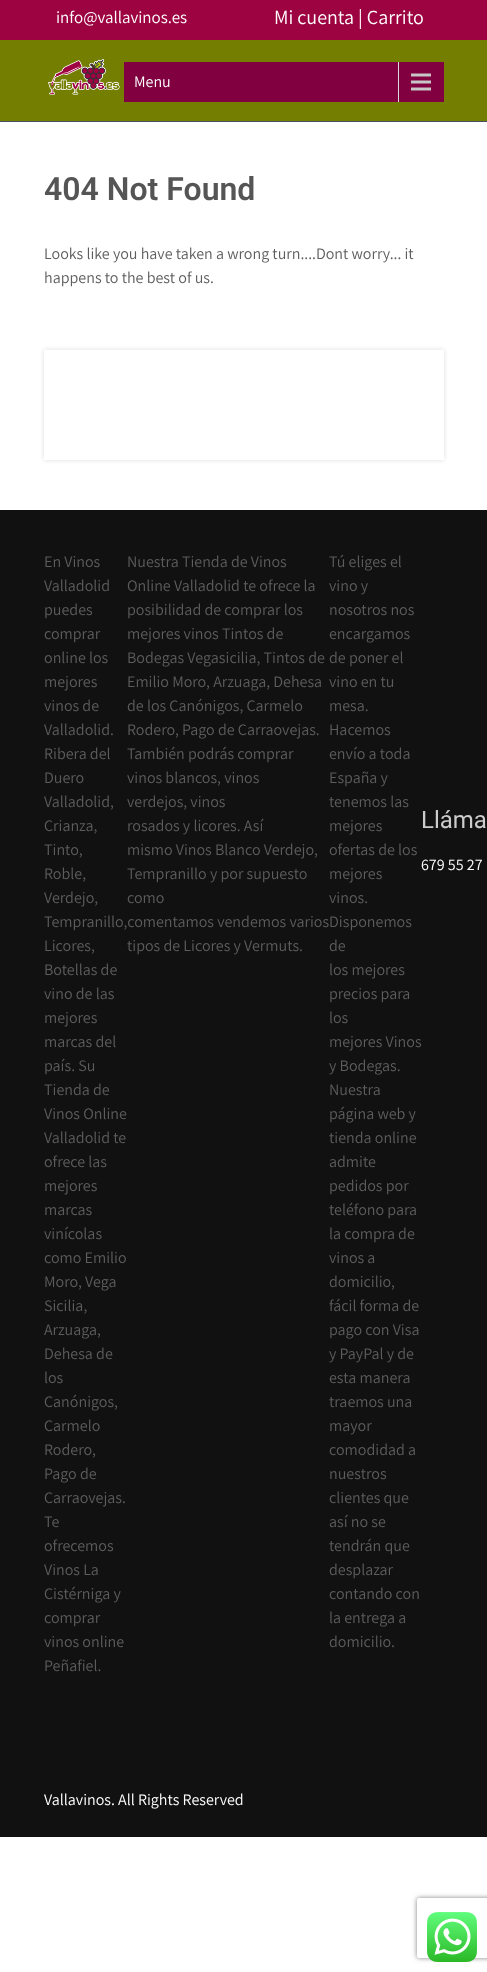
(async () => {
const canvas = document.querySelector("canvas")
canvas.width = 487
canvas.height = 1972
const c = canvas.getContext("2d")
c.miterLimit = 4
c.fontKerning = "normal"
function T(s,x,y){c.fillText(s,x,y)}
function R(x,y,w,h){c.fillRect(x,y,w,h)}
async function I(src,x,y,w,h){const img=new Image();img.src=src;await img.decode();c.drawImage(img,x,y,w,h)}
let path
c.fillStyle="#fff"
R(0,0,487,1972)
c.fillStyle="#9d0341"
R(0,0,487,40)
c.font="17px Assistant"
c.fillStyle="#fff"
T("info@vallavinos.es",56,23)
c.font="20px Assistant"
T("Mi cuenta | Carrito",274,24)
c.fillStyle="#747e01"
R(0,40,487,81)
c.fillStyle="#465361"
R(0,121,487,1)
await I("1.png",48,59,72,36)
c.fillStyle="#800040"
R(124,62,320,40)
await I("2.png",398,62,33,40)
c.font="16px Assistant"
c.fillStyle="#fff"
T("Menu",134,87)
c.font="600 32px Roboto"
c.fillStyle="#555"
T("404 Not Found",44,200)
c.font="16px Assistant"
c.fillStyle="#5d5d5d"
T("Looks like you have taken a wrong turn....Dont worry... it",44,259)
T("happens to the best of us.",44,283)
c.save()
path = new Path2D("M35 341h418v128h-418zm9 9h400v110h-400z")
c.clip(path,"evenodd")
c.fillStyle="#ddd"
c.filter="blur(2.5px)"
c.beginPath()
c.rect(44,350,400,110)
c.fill()
c.filter="none"
c.restore()
c.fillStyle="#111"
R(0,510,487,1327)
c.fillStyle="#5d5d5d"
T("Nuestra Tienda de Vinos",127,567)
T("Online Valladolid te ofrece la",127,591)
T("posibilidad de comprar los",127,615)
T("mejores vinos Tintos de",127,639)
T("Bodegas Vegasicilia, Tintos de",127,663)
T("Emilio Moro, Arzuaga, Dehesa",127,687)
T("de los Canónigos, Carmelo",127,711)
T("Rodero, Pago de Carraovejas.",127,735)
T("También podrás comprar",127,759)
T("vinos blancos, vinos",127,783)
T("verdejos, vinos",127,807)
T("rosados y licores. Así",127,831)
T("mismo Vinos Blanco Verdejo,",127,855)
T("Tempranillo y por supuesto",127,879)
T("como",127,903)
T("tipos de Licores y Vermuts.",127,951)
T("Tú eliges el",329,567)
T("vino y",329,591)
T("nosotros nos",329,615)
T("encargamos",329,639)
T("de poner el",329,663)
T("vino en tu",329,687)
T("mesa.",329,711)
T("Hacemos",329,735)
T("envío a toda",329,759)
T("España y",329,783)
T("tenemos las",329,807)
T("mejores",329,831)
T("ofertas de los",329,855)
T("mejores",329,879)
T("vinos.",329,903)
T("de",329,951)
T("los mejores",329,975)
T("precios para",329,999)
T("los",329,1023)
T("mejores Vinos",329,1047)
T("y Bodegas.",329,1071)
T("Nuestra",329,1095)
T("página web y",329,1119)
T("tienda online",329,1143)
T("admite",329,1167)
T("pedidos por",329,1191)
T("teléfono para",329,1215)
T("la compra de",329,1239)
T("vinos a",329,1263)
T("domicilio,",329,1287)
T("fácil forma de",329,1311)
T("pago con Visa",329,1335)
T("y PayPal y de",329,1359)
T("esta manera",329,1383)
T("traemos una",329,1407)
T("mayor",329,1431)
T("comodidad a",329,1455)
T("nuestros",329,1479)
T("clientes que",329,1503)
T("así no se",329,1527)
T("tendrán que",329,1551)
T("desplazar",329,1575)
T("contando con",329,1599)
T("la entrega a",329,1623)
T("domicilio.",329,1647)
T("En Vinos",44,567)
T("Valladolid",44,591)
T("puedes",44,615)
T("comprar",44,639)
T("online los",44,663)
T("mejores",44,687)
T("vinos de",44,711)
T("Valladolid.",44,735)
T("Ribera del",44,759)
T("Duero",44,783)
T("Valladolid,",44,807)
T("Crianza,",44,831)
T("Tinto,",44,855)
T("Roble,",44,879)
T("Verdejo,",44,903)
T("Tempranillo,comentamos vendemos variosDisponemos",44,927)
T("Licores,",44,951)
T("Botellas de",44,975)
T("vino de las",44,999)
T("mejores",44,1023)
T("marcas del",44,1047)
T("país. Su",44,1071)
T("Tienda de",44,1095)
T("Vinos Online",44,1119)
T("Valladolid te",44,1143)
T("ofrece las",44,1167)
T("mejores",44,1191)
T("marcas",44,1215)
T("vinícolas",44,1239)
T("como Emilio",44,1263)
T("Moro, Vega",44,1287)
T("Sicilia,",44,1311)
T("Arzuaga,",44,1335)
T("Dehesa de",44,1359)
T("los",44,1383)
T("Canónigos,",44,1407)
T("Carmelo",44,1431)
T("Rodero,",44,1455)
T("Pago de",44,1479)
T("Carraovejas.",44,1503)
T("Te",44,1527)
T("ofrecemos",44,1551)
T("Vinos La",44,1575)
T("Cistérniga y",44,1599)
T("comprar",44,1623)
T("vinos online",44,1647)
T("Peñafiel.",44,1671)
c.font="24px Roboto"
c.fillStyle="#ccc"
T("Lláma",421,828)
c.font="16px Assistant"
c.fillStyle="#fff"
T("679 55 27",421,870)
T("Vallavinos. All Rights Reserved",44,1805)
c.save()
path = new Path2D("M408 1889h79v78h-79zm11 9h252c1 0 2 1 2 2v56c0 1-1 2-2 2h-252c-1 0-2-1-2-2v-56c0-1 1-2 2-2z")
c.clip(path,"evenodd")
c.fillStyle="#808080"
c.filter="blur(2.5px)"
c.beginPath()
c.roundRect(417,1898,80,60,2)
c.fill()
c.filter="none"
c.restore()
await I("3.png",427,1912,50,50)
})()
